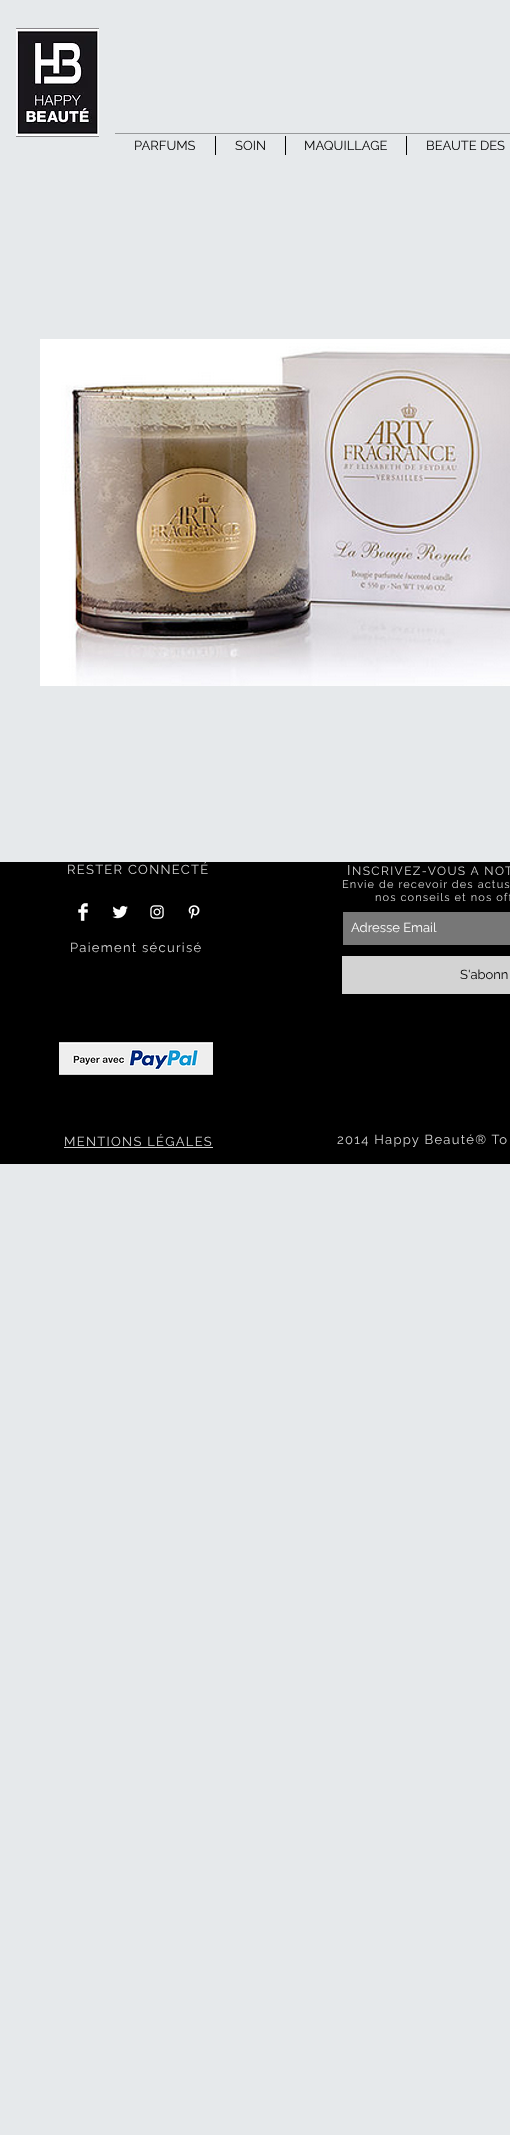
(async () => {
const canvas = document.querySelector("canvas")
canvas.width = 510
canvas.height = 2135
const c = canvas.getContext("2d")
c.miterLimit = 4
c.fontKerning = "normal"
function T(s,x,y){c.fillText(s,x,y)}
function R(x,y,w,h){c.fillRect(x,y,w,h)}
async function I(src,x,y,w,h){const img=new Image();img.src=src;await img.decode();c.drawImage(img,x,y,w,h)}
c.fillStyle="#e6e9eb"
R(0,0,510,2135)
await I("1.png",16,28,83,109)
c.fillStyle="#989a9b"
R(115,133,395,1)
c.font="13px Raleway"
c.fillStyle="#000"
T("PARFUMS",134,150)
R(215,136,1,19)
T("SOIN",235,150)
R(285,136,1,19)
T("MAQUILLAGE",304,150)
R(406,136,1,19)
T("BEAUTE DES",426,150)
await I("2.png",40,339,470,347)
R(0,862,510,302)
c.letterSpacing="1.3px"
c.fillStyle="#d3d3d3"
T("RESTER CONNECTÉ",67,874)
c.letterSpacing="1.4px"
c.font="14px Raleway"
T("I",347,875)
c.font="12px Raleway"
T("NSCRIVEZ-VOUS A NOT",352,875)
c.letterSpacing="1.1px"
c.font="11px Raleway"
T("Envie de recevoir des actus",342,888)
T("nos conseils et nos off",375,901)
await I("3.png",78,903,10,18)
await I("4.png",112,905,16,14)
await I("5.png",150,905,14,14)
await I("6.png",188,905,12,14)
c.letterSpacing="1.3px"
c.font="13px Raleway"
T("Paiement sécurisé",70,952)
c.fillStyle="#777"
R(343,912,167,33)
c.letterSpacing="0px"
c.fillStyle="#fff"
T("Adresse Email",351,932)
c.fillStyle="#d3d3d3"
R(342,956,168,38)
c.fillStyle="#000"
T("S'abonn",460,979)
await I("7.png",59,1042,154,33)
c.letterSpacing="1.3px"
c.fillStyle="#d3d3d3"
T("MENTIONS LÉGALES",64,1146)
R(64,1147,149,1)
T("2014 Happy Beauté® To",337,1144)
})()
